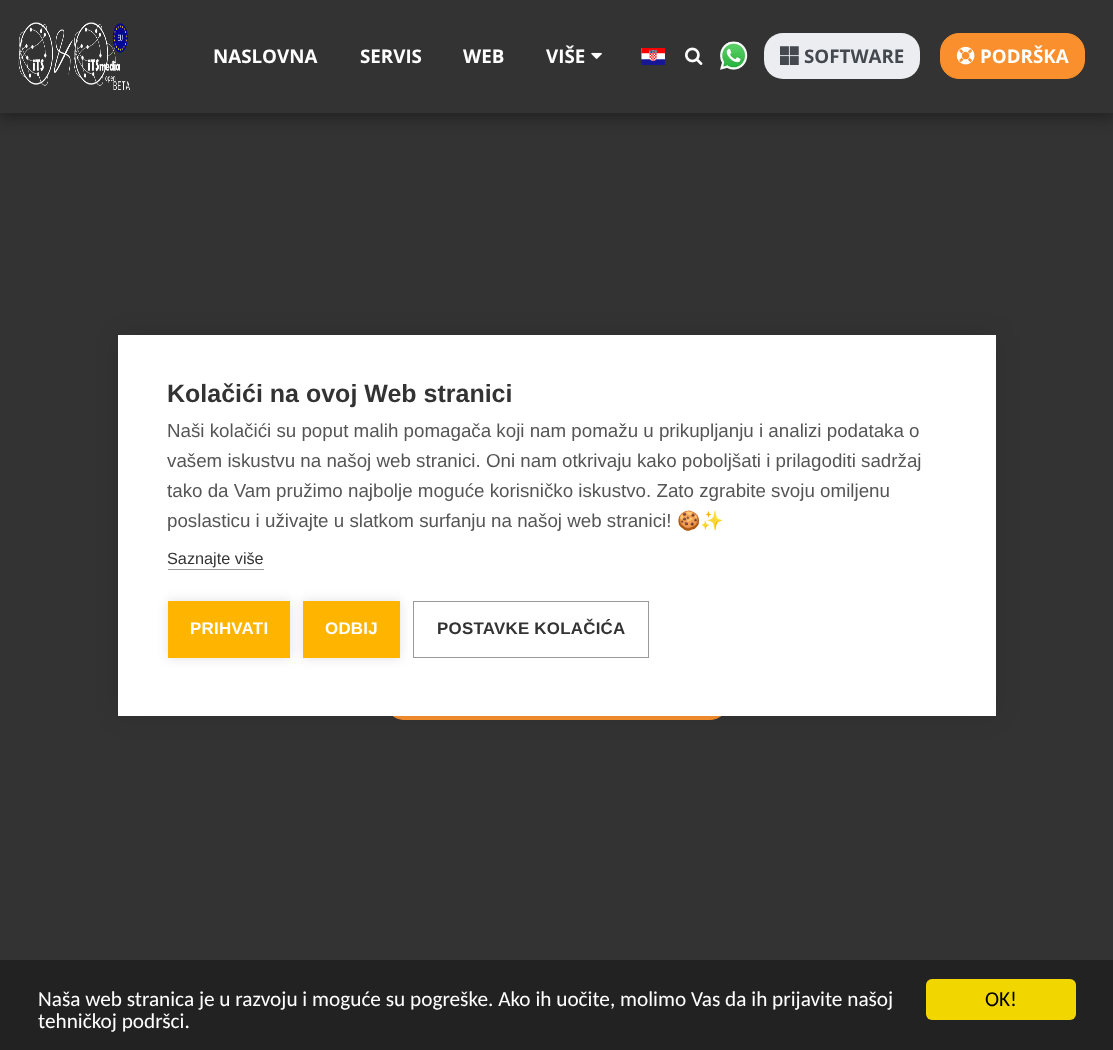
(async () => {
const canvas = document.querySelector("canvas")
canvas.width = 1113
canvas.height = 1050
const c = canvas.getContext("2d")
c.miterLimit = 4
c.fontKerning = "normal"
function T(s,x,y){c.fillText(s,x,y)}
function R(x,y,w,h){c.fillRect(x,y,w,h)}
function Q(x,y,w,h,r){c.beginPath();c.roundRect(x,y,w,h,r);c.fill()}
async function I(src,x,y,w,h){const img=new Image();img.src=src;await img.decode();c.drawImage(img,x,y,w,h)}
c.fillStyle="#333"
R(0,0,1113,1050)
c.fillStyle="#00000059"
c.filter="blur(7.5px)"
c.beginPath()
c.rect(-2,0,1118,118)
c.fill()
c.filter="none"
c.fillStyle="#333"
R(0,0,1113,113)
await I("1.png",18,22,112,68)
c.font="bold 18.75px Open Sans"
c.fillStyle="#fff"
T("NASLOVNA",213,63)
T("SERVIS",360,63)
T("WEB",463,63)
T("VIŠE",546,63)
await I("2.png",591,52,11,7)
await I("3.png",641,48,24,17)
await I("4.png",685,47,18,18)
await I("5.png",720,41,28,29)
c.fillStyle="#ebedf0"
Q(764,33,156,46,19)
await I("6.png",780,46,19,19)
c.fillStyle="#444950"
T("SOFTWARE",804,63)
c.fillStyle="#f9902d"
c.beginPath()
c.roundRect(940.5,33.5,144,45,18.5)
c.fill()
c.strokeStyle="#f9902d"
c.stroke()
await I("7.png",956,46,19,19)
c.fillStyle="#fff"
T("PODRŠKA",980,63)
c.fillStyle="#f9902d"
c.beginPath()
c.roundRect(385.5,663.5,343,56,18.5)
c.fill()
c.stroke()
c.fillStyle="#0000001a"
c.filter="blur(12.5px)"
c.beginPath()
c.rect(118,335,878,381)
c.fill()
c.filter="none"
c.fillStyle="#fff"
R(118,335,878,381)
c.font="bold 25px Liberation Sans"
c.fillStyle="#333"
T("Kolačići na ovoj Web stranici",167,402)
c.font="18.75px Liberation Sans"
c.fillStyle="#555"
T("Naši kolačići su poput malih pomagača koji nam pomažu u prikupljanju i analizi podataka o",167,437)
T("vašem iskustvu na našoj web stranici. Oni nam otkrivaju kako poboljšati i prilagoditi sadržaj",167,467)
T("tako da Vam pružimo najbolje moguće korisničko iskustvo. Zato zgrabite svoju omiljenu",167,497)
T("poslasticu i uživajte u slatkom surfanju na našoj web stranici!",167,527)
c.font="18.75px Noto Color Emoji"
T("🍪✨",677,527)
c.font="16.25px Liberation Sans"
c.fillStyle="#333"
T("Saznajte više",167,564)
c.fillStyle="#999"
R(168,569,96,1)
c.fillStyle="#0000001f"
c.filter="blur(6px)"
c.beginPath()
c.rect(168,601,122,57)
c.fill()
c.filter="none"
c.fillStyle="#ffb400"
R(168,601,122,57)
c.letterSpacing="0.25px"
c.font="bold 16.9px Liberation Sans"
c.fillStyle="#fff"
T("PRIHVATI",190,634)
c.fillStyle="#0000001f"
c.filter="blur(6px)"
c.beginPath()
c.rect(303,601,97,57)
c.fill()
c.filter="none"
c.fillStyle="#ffb400"
R(303,601,97,57)
c.fillStyle="#fff"
T("ODBIJ",325,634)
c.strokeStyle="#999"
c.strokeRect(413.5,601.5,235,56)
c.fillStyle="#333"
T("POSTAVKE KOLAČIĆA",437,634)
c.fillStyle="#222"
R(0,960,1113,90)
c.letterSpacing="0px"
c.font="21.25px Carlito"
c.fillStyle="#fff"
T("Naša web stranica je u razvoju i moguće su pogreške. Ako ih uočite, molimo Vas da ih prijavite našoj",38,1006)
T("tehničkoj podršci.",38,1028)
c.fillStyle="#f1d600"
Q(926,979,150,41,6)
c.fillStyle="#000"
T("OK!",985,1006)
})()
